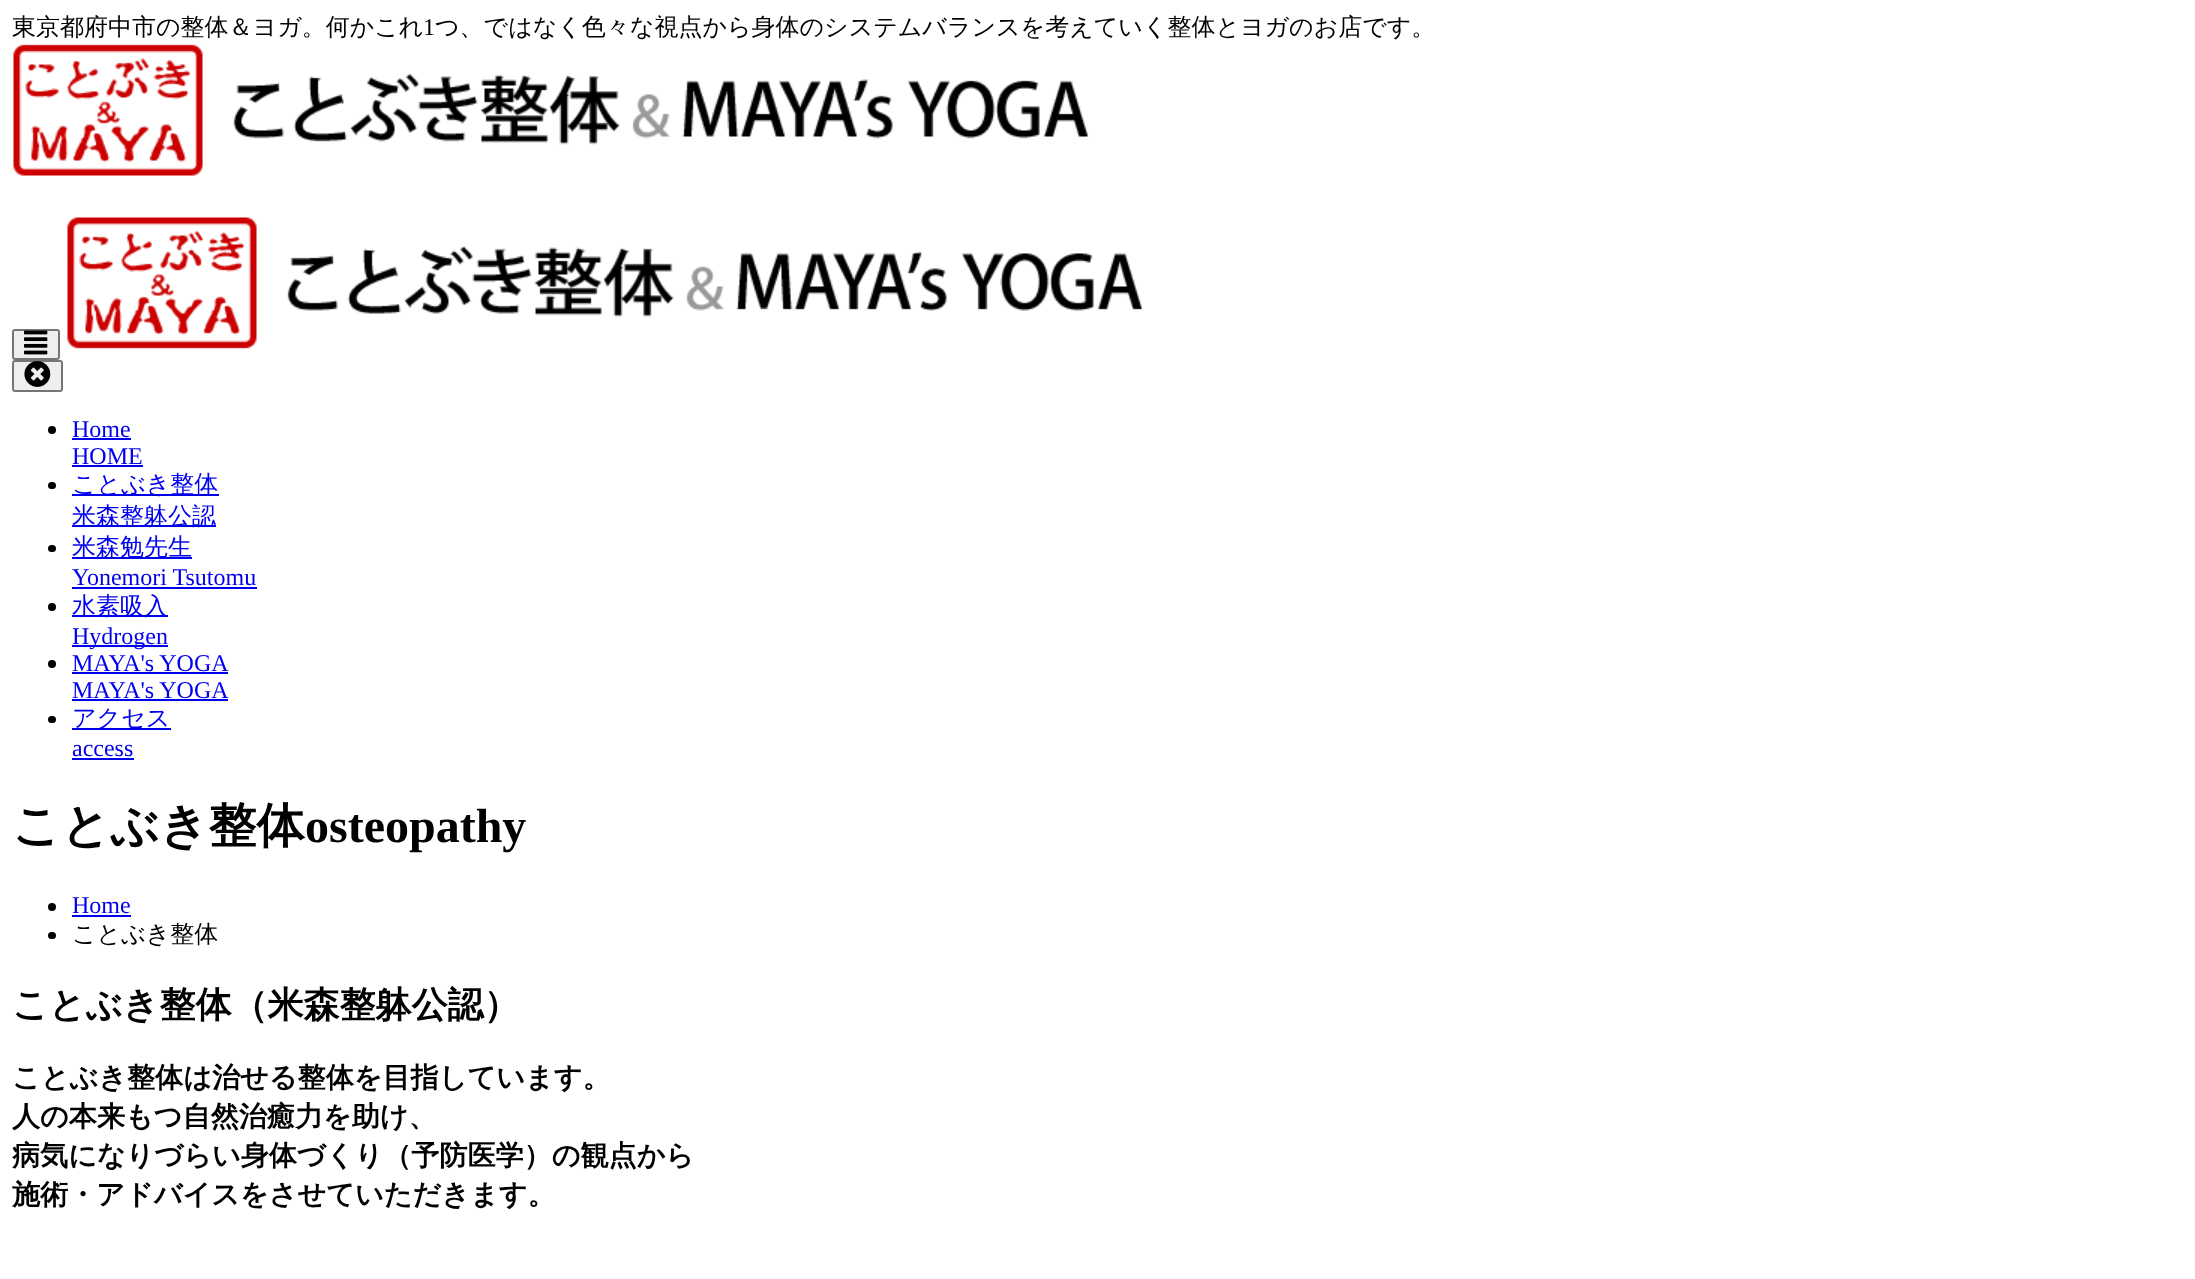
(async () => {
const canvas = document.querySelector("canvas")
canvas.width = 2195
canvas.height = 1279
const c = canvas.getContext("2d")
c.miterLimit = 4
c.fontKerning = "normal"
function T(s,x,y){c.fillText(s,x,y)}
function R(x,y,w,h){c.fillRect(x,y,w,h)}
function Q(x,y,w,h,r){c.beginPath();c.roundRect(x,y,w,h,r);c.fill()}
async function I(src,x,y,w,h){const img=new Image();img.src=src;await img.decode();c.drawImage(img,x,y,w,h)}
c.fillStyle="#fff"
R(0,0,2195,1279)
c.font="500 24px WenQuanYi Zen Hei"
c.fillStyle="#000"
T("東京都府中市の整体＆ヨガ。何かこれ",12,35)
c.font="24px Liberation Serif"
T("1",423,35)
c.font="500 24px WenQuanYi Zen Hei"
T("つ、ではなく色々な視点から身体のシステムバランスを考えていく整体とヨガのお店です。",435,35)
await I("1.png",13,44,1076,132)
c.fillStyle="#efefef"
c.beginPath()
c.roundRect(13,330,46,29,2)
c.fill()
c.strokeStyle="#767676"
c.lineWidth=2
c.stroke()
await I("2.png",24,330,24,25)
await I("3.png",67,217,1076,132)
c.beginPath()
c.roundRect(13,361,49,30,2)
c.fill()
c.stroke()
await I("4.png",24,361,27,26)
c.fillStyle="#000"
c.beginPath()
c.arc(52,430,4,0,7)
c.fill()
c.font="24px Liberation Serif"
c.fillStyle="#00e"
T("Home",72,437)
R(72,438,59,2)
T("HOME",72,464)
R(72,465,71,2)
c.fillStyle="#000"
Q(48,482,8,7,3.5)
c.fillStyle="#00e"
R(72,494,147,2)
c.font="500 24px WenQuanYi Zen Hei"
T("ことぶき整体",72,492)
R(72,525,144,2)
T("米森整躰公認",72,524)
c.fillStyle="#000"
Q(48,545,8,7,3.5)
c.fillStyle="#00e"
R(72,557,120,2)
T("米森勉先生",72,555)
c.font="24px Liberation Serif"
T("Yonemori Tsutomu",72,585)
R(72,587,185,2)
c.fillStyle="#000"
c.beginPath()
c.arc(52,607,4,0,7)
c.fill()
c.fillStyle="#00e"
R(72,615,96,2)
c.font="500 24px WenQuanYi Zen Hei"
T("水素吸入",72,614)
R(72,645,96,2)
c.font="24px Liberation Serif"
T("Hydrogen",72,644)
c.fillStyle="#000"
c.beginPath()
c.arc(52,664,4,0,7)
c.fill()
c.fillStyle="#00e"
T("MAYA's YOGA",72,671)
R(72,672,156,2)
T("MAYA's YOGA",72,698)
R(72,699,156,2)
c.fillStyle="#000"
Q(48,716,8,7,3.5)
c.fillStyle="#00e"
R(72,728,99,2)
c.font="500 24px WenQuanYi Zen Hei"
T("アクセス",72,726)
c.font="24px Liberation Serif"
T("access",72,756)
R(72,758,62,2)
c.font="bold 48px WenQuanYi Zen Hei"
c.fillStyle="#000"
T("ことぶき整体",12,842)
c.font="bold 48px Liberation Serif"
T("osteopathy",305,842)
c.beginPath()
c.arc(52,907,4,0,7)
c.fill()
c.font="24px Liberation Serif"
c.fillStyle="#00e"
T("Home",72,913)
R(72,915,59,2)
c.fillStyle="#000"
Q(48,932,8,7,3.5)
c.font="500 24px WenQuanYi Zen Hei"
T("ことぶき整体",72,942)
c.font="bold 36px WenQuanYi Zen Hei"
T("ことぶき整体（米森整躰公認）",12,1017)
c.font="bold 28.1px WenQuanYi Zen Hei"
T("ことぶき整体は治せる整体を目指しています。",12,1087)
T("人の本来もつ自然治癒力を助け、",12,1126)
T("病気になりづらい身体づくり（予防医学）の観点から",12,1165)
T("施術・アドバイスをさせていただきます。",12,1204)
})()
